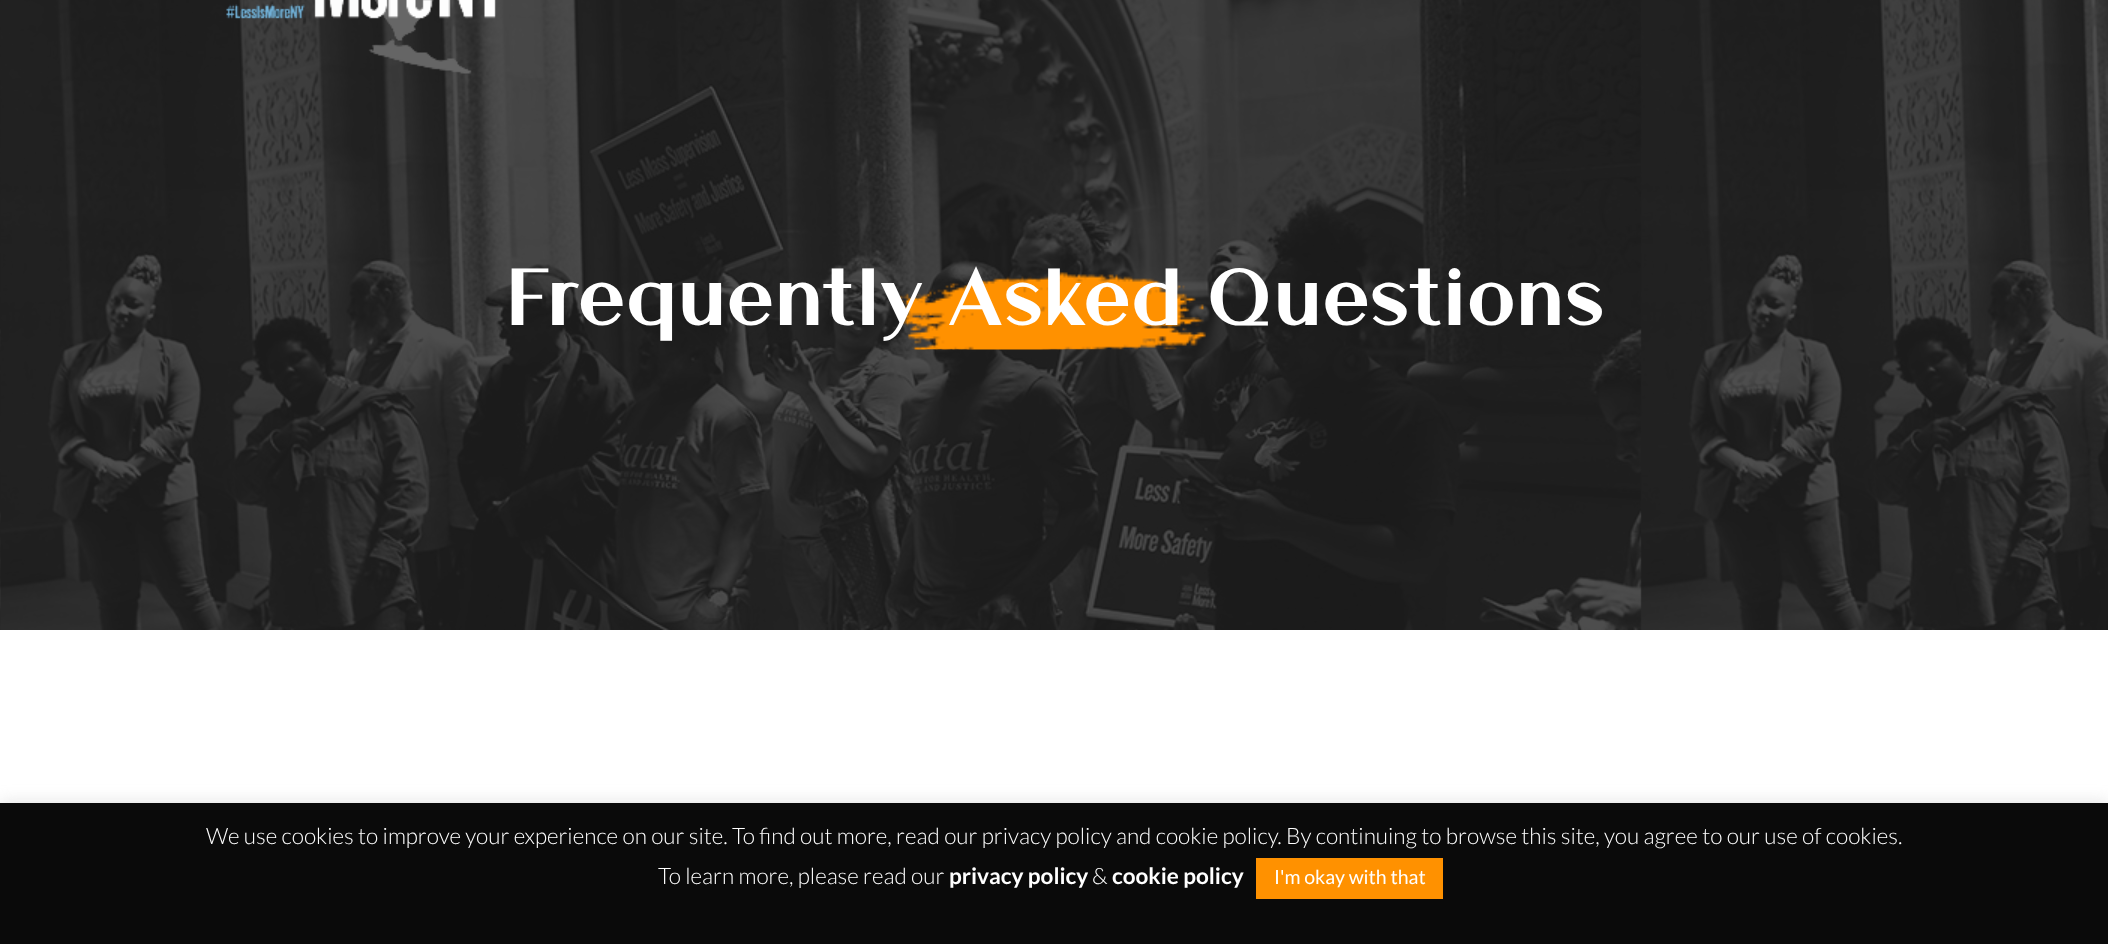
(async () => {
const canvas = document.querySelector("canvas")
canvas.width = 2108
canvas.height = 944
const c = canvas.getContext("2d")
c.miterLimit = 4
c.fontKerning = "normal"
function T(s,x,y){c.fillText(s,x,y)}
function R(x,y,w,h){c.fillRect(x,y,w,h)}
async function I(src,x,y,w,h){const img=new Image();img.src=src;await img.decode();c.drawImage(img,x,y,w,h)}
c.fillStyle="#fff"
R(0,0,2108,944)
await I("2.png",0,0,2108,630)
await I("1.png",226,0,270,74)
await I("3.png",900,272,306,78)
c.font="bold 82.5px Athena"
T("Frequently Asked Questions",505,325)
c.fillStyle="#acabab4d"
c.filter="blur(7.5px)"
c.beginPath()
c.rect(0,801,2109,143)
c.fill()
c.filter="none"
c.fillStyle="#0a0a0a"
R(0,803,2108,141)
c.font="300 22.5px Lato"
c.fillStyle="#fff"
T("We use cookies to improve your experience on our site. To find out more, read our privacy policy and cookie policy. By continuing to browse this site, you agree to our use of cookies.",206,844)
T("To learn more, please read our",658,884)
c.font="bold 22.5px Lato"
T("privacy policy",949,884)
c.font="300 22.5px Lato"
T("&",1092,884)
c.font="bold 22.5px Lato"
T("cookie policy",1112,884)
c.fillStyle="#ff9100"
R(1256,858,187,41)
c.font="19.5px Lato"
c.fillStyle="#fff"
T("I'm okay with that",1274,884)
})()
